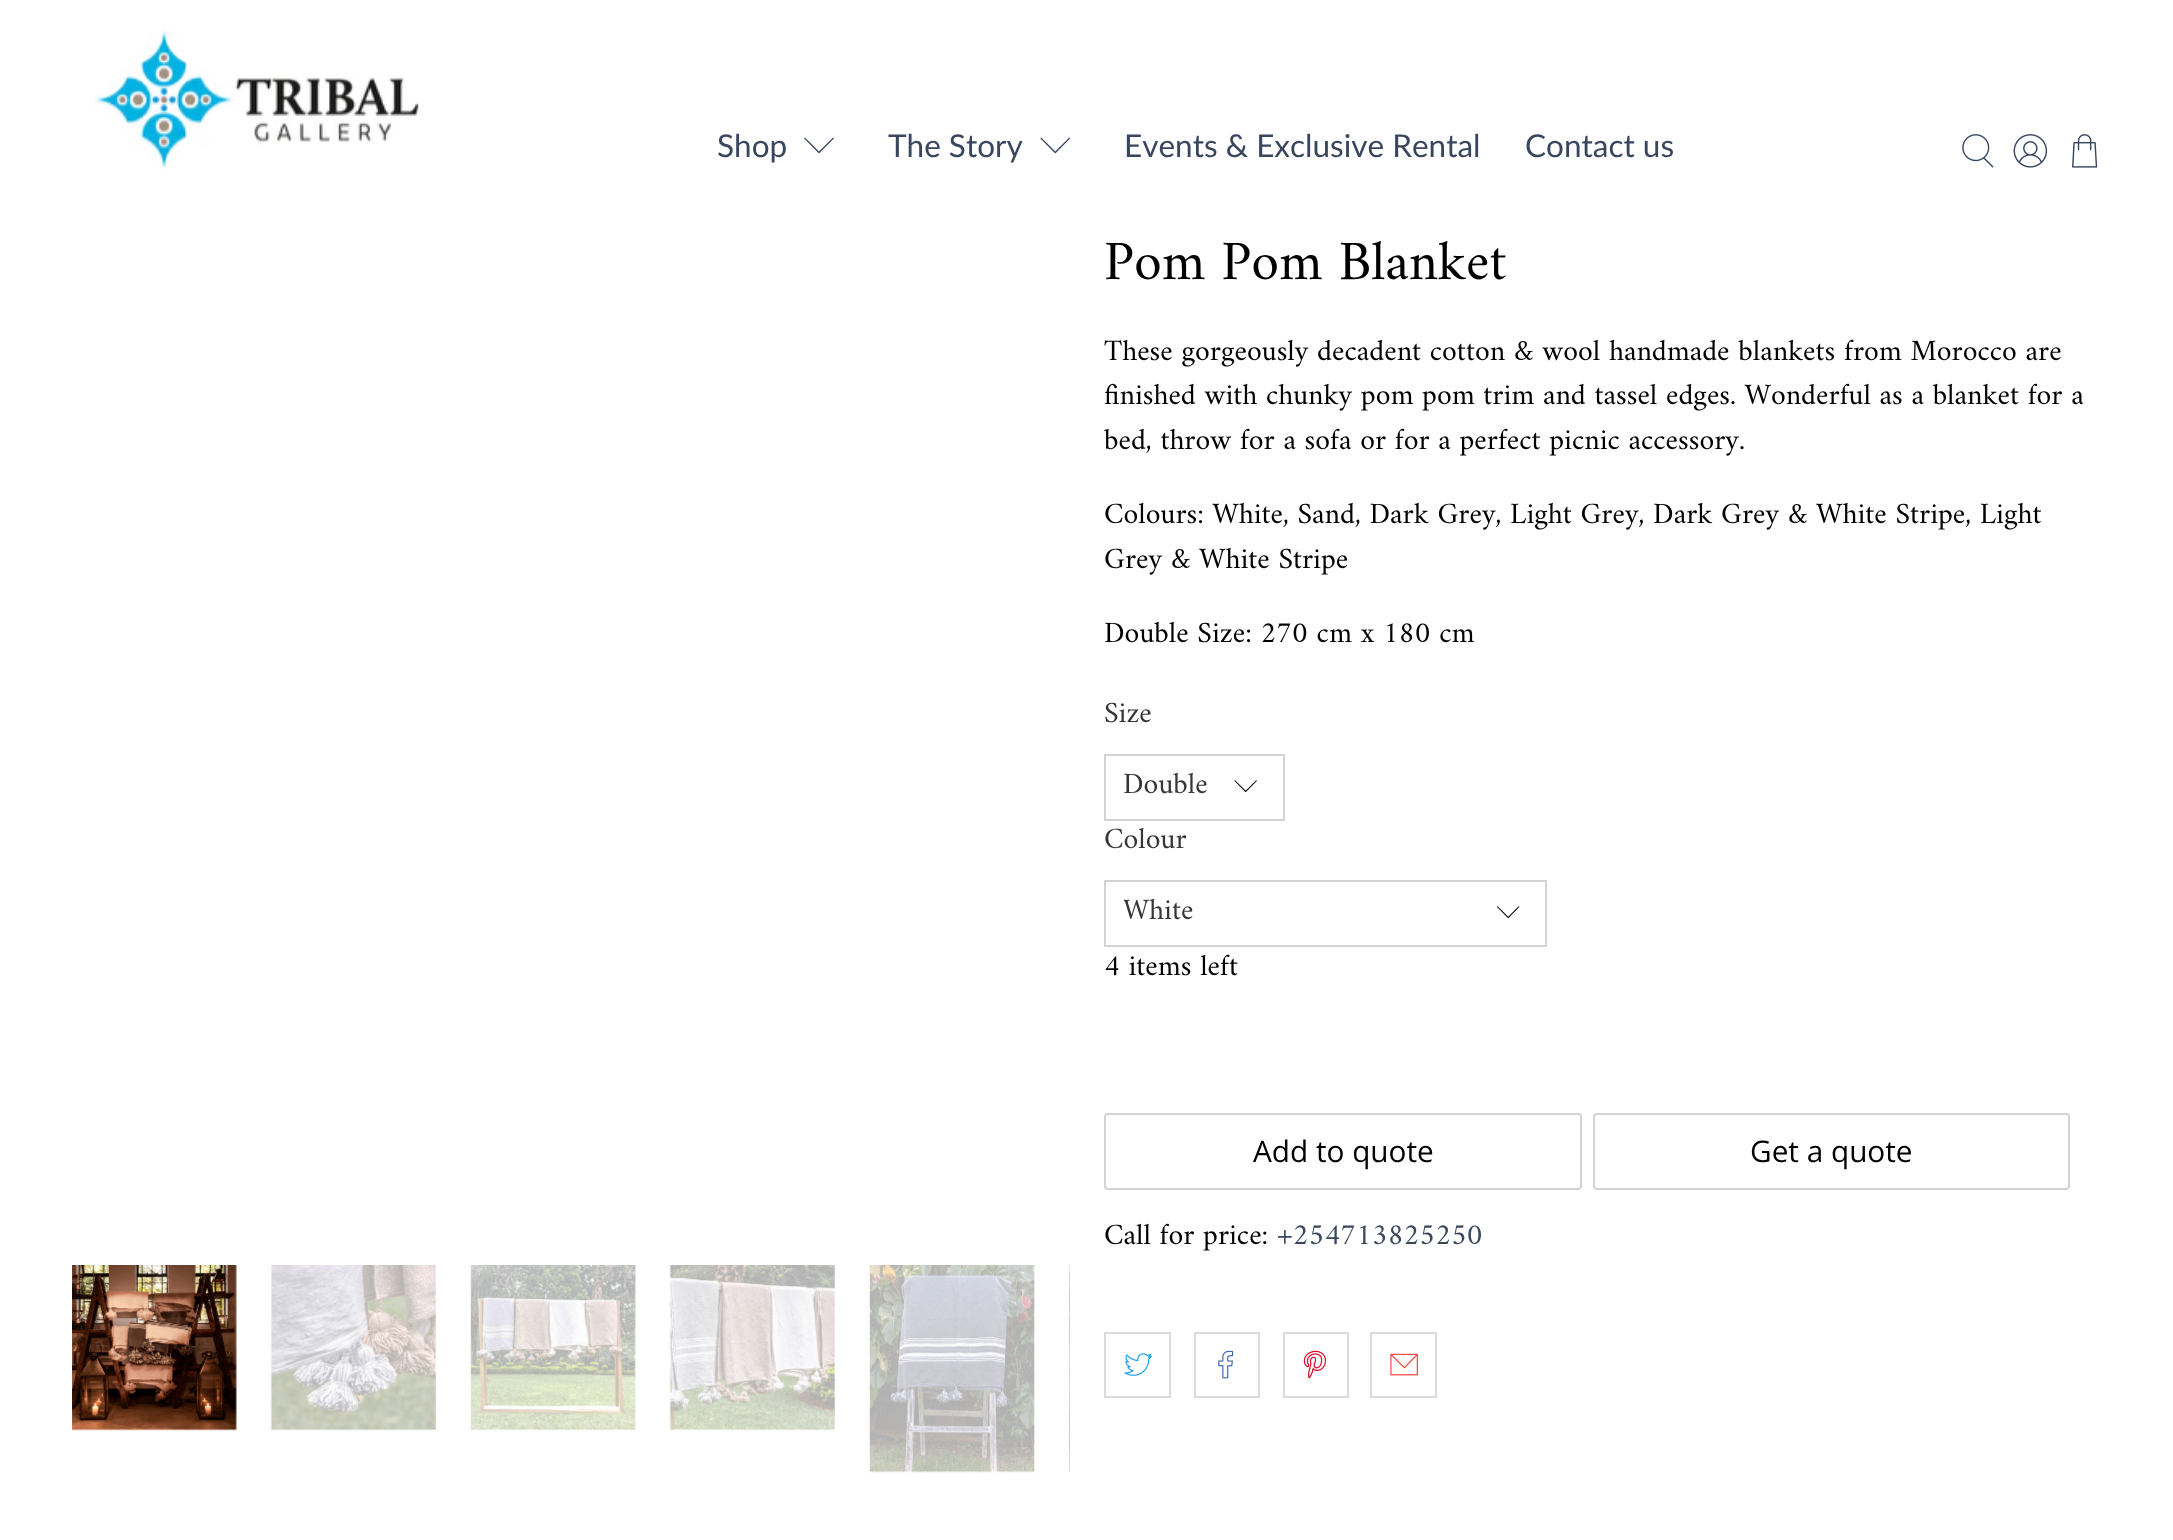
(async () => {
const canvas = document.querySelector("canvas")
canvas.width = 2173
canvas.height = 1540
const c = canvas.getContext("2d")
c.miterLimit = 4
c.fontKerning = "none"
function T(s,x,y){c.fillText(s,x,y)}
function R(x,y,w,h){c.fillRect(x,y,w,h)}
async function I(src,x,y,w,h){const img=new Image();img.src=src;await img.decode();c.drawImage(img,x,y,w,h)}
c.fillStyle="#fff"
R(0,0,2173,1540)
await I("1.png",94,30,325,140)
c.font="31.5px Lato"
c.fillStyle="#39465e"
T("Shop",717,157)
await I("2.png",804,137,30,17)
T("The Story",888,157)
await I("3.png",1040,137,30,17)
T("Events & Exclusive Rental",1124,157)
T("Contact us",1525,157)
await I("4.png",1962,134,32,34)
await I("5.png",2013,134,35,34)
await I("6.png",2072,134,26,34)
c.font="56px Amiri"
c.fillStyle="#000"
T("Pom Pom Blanket",1104,279)
c.font="29.75px Amiri"
T("These gorgeously decadent cotton & wool handmade blankets from Morocco are",1104,360)
T("finished with chunky pom pom trim and tassel edges. Wonderful as a blanket for a",1104,404)
T("bed, throw for a sofa or for a perfect picnic accessory.",1104,449)
T("Colours: White, Sand, Dark Grey, Light Grey, Dark Grey & White Stripe, Light",1104,523)
T("Grey & White Stripe",1104,568)
T("Double Size: 270 cm x 180 cm",1104,642)
c.fillStyle="#363636"
T("Size",1104,722)
c.strokeStyle="#d3d3d3"
c.lineWidth=2
c.strokeRect(1105,755,179,65)
T("Double",1123,793)
await I("7.png",1234,780,23,13)
T("Colour",1104,848)
c.strokeRect(1105,881,441,65)
c.save()
c.beginPath()
c.rect(1124,891,348,45)
c.clip()
T("White",1123,919)
c.restore()
await I("8.png",1497,906,23,13)
c.fillStyle="#000"
T("4 items left",1104,975)
c.beginPath()
c.roundRect(1105,1114,476,75,3)
c.stroke()
c.font="29.75px Open Sans"
T("Add to quote",1253,1162)
c.beginPath()
c.roundRect(1594,1114,475,75,3)
c.stroke()
T("Get a quote",1750,1162)
c.font="29.75px Amiri"
T("Call for price:",1104,1244)
c.fillStyle="#39465e"
T("+254713825250",1277,1244)
c.strokeStyle="#dbdbdb"
c.strokeRect(1105,1333,65,64)
await I("9.png",1124,1353,28,23)
c.strokeRect(1195,1333,64,64)
await I("10.png",1218,1350,16,29)
c.strokeRect(1284,1333,64,64)
await I("11.png",1303,1350,23,29)
c.strokeRect(1371,1333,65,64)
await I("12.png",1390,1353,28,23)
await I("13.png",72,1265,165,166)
await I("14.png",270,1265,166,166)
await I("15.png",470,1265,166,166)
await I("16.png",669,1265,166,166)
await I("17.png",869,1265,166,208)
await I("18.png",1069,1265,1,208)
})()
